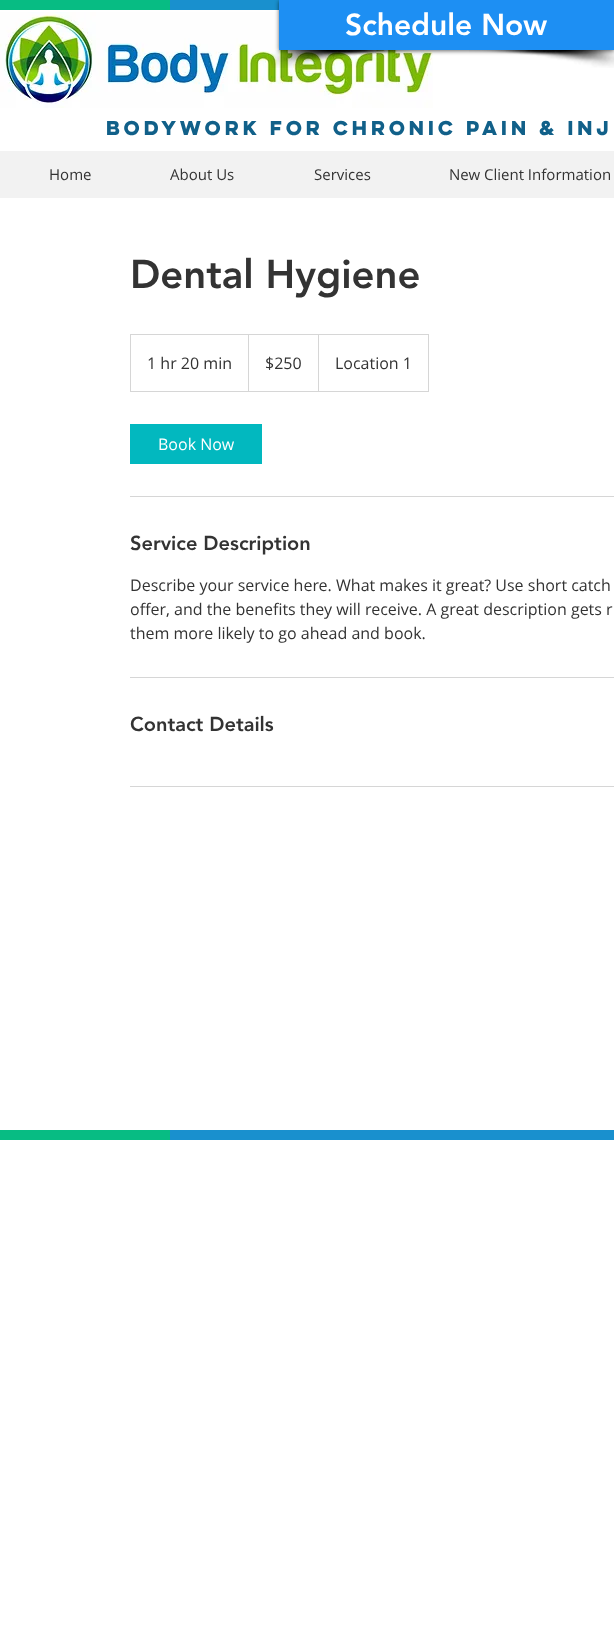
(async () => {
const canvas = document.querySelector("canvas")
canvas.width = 614
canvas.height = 1647
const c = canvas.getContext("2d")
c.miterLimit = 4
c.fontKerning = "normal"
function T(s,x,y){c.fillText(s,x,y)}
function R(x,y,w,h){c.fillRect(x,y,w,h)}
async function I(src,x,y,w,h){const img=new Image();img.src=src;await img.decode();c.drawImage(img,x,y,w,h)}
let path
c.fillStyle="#fff"
R(0,0,614,1647)
await I("3.png",0,12,433,96)
await I("1.png",270,50,154,18)
await I("2.png",469,50,145,18)
c.fillStyle="#1990ce"
R(170,0,109,10)
c.fillStyle="#00000099"
c.filter="blur(2px)"
c.beginPath()
c.rect(279,1,335,50)
c.fill()
c.filter="none"
c.fillStyle="#1d8ff3"
R(279,0,335,50)
c.font="900 30px 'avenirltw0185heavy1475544'"
c.fillStyle="#fff"
T("Schedule Now",345,35)
c.fillStyle="#07bc83"
R(0,0,170,10)
c.font="bold 18px 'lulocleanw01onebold'"
c.fillStyle="#116089"
T("Bodywork for chronic pain & inj",106,135)
c.fillStyle="#f2f2f2"
R(0,151,614,47)
c.font="15px Open Sans"
c.fillStyle="#333"
T("Home",49,180)
T("About Us",170,180)
T("Services",314,180)
T("New Client Information",449,180)
c.font="900 40px 'avenirltw0185heavy1475544'"
T("Dental Hygiene",130,288)
c.strokeStyle="#d6d6d6"
c.strokeRect(130.5,334.5,298,57)
c.font="16px Open Sans"
T("1 hr 20 min",147,369)
c.fillStyle="#d6d6d6"
path = new Path2D("M248 391v-57l1 1v56z")
c.fill(path)
c.fillStyle="#333"
T("$250",265,369)
c.fillStyle="#d6d6d6"
path = new Path2D("M318 391v-57l1 1v56z")
c.fill(path)
c.fillStyle="#333"
T("Location 1",335,369)
c.fillStyle="#02b8bf"
R(130,424,132,40)
c.fillStyle="#fff"
T("Book Now",158,450)
c.fillStyle="#d6d6d6"
R(130,496,484,1)
c.font="900 20px 'avenirltw0185heavy1475544'"
c.fillStyle="#333"
T("Service Description",130,550)
c.font="16px Open Sans"
T("Describe your service here. What makes it great? Use short catch",130,591)
T("offer, and the benefits they will receive. A great description gets r",130,615)
T("them more likely to go ahead and book.",130,639)
c.fillStyle="#d6d6d6"
R(130,677,484,1)
c.font="900 20px 'avenirltw0185heavy1475544'"
c.fillStyle="#333"
T("Contact Details",130,731)
c.fillStyle="#d6d6d6"
R(130,786,484,1)
c.fillStyle="#07bc83"
R(0,1130,170,10)
c.fillStyle="#1990ce"
R(170,1130,444,10)
})()
